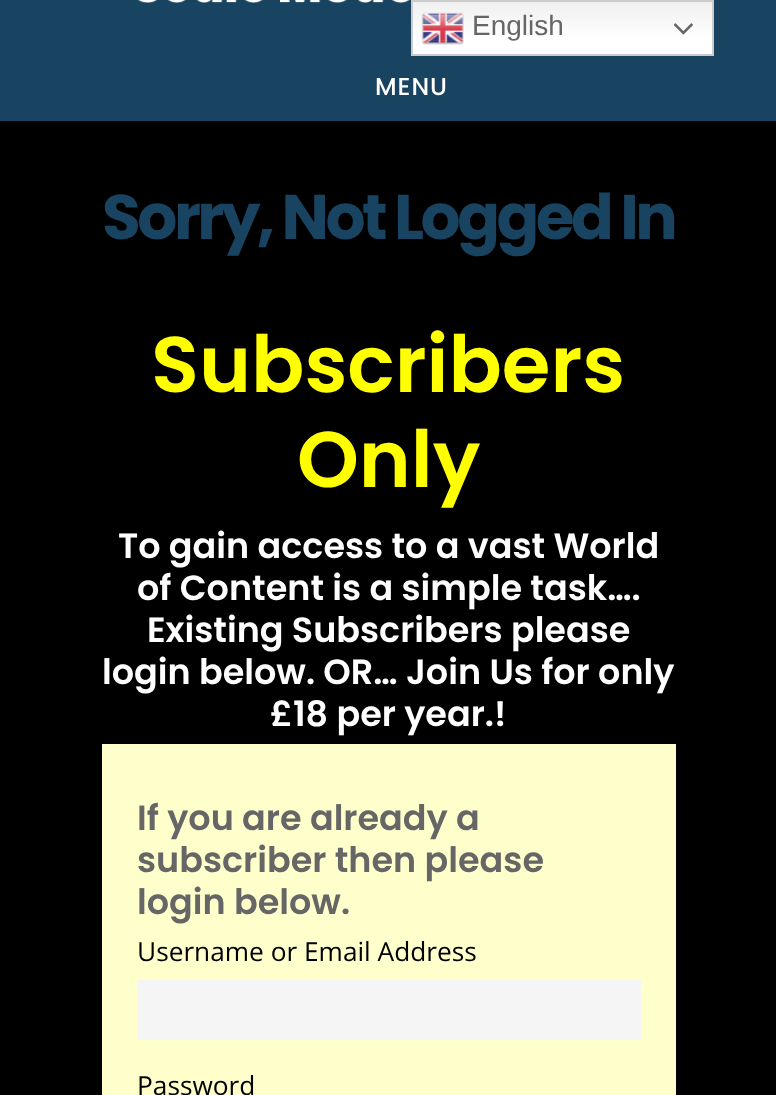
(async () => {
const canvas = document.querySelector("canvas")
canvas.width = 776
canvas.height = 1095
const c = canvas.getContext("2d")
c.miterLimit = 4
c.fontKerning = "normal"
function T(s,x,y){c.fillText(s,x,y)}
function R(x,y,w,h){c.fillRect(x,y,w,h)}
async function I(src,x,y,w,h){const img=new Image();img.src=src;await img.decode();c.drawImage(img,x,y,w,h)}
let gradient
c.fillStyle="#000"
R(0,0,776,1095)
c.fillStyle="#194461"
R(0,0,776,121)
gradient = c.createLinearGradient(563,0,563,56)
gradient.addColorStop(0,"#efefef")
gradient.addColorStop(.7,"#fff")
c.fillStyle = gradient
R(413,2,299,52)
c.strokeStyle="#ccc"
c.lineWidth=2
c.strokeRect(412,1,301,54)
await I("1.png",421,12,43,33)
c.font="28px Liberation Sans"
c.fillStyle="#666"
T("English",472,35)
await I("2.png",674,23,19,12)
await I("3.png",138,0,272,3)
c.letterSpacing="1px"
c.font="500 24.5px Poppins"
c.fillStyle="#fff"
T("MENU",375,95)
c.letterSpacing="-3.5px"
c.font="bold 63px Poppins"
c.fillStyle="#194461"
T("Sorry, Not Logged In",102,239)
c.letterSpacing="0px"
c.font="600 78.75px Poppins"
c.fillStyle="#ff0"
T("Subscribers",151,392)
T("Only",297,487)
c.font="600 35px Poppins"
c.fillStyle="#fff"
T("To gain access to a vast World",118,558)
T("of Content is a simple task….",137,600)
T("Existing Subscribers please",147,642)
T("login below. OR… Join Us for only",102,684)
T("£18 per year.!",270,726)
c.fillStyle="#ffc"
R(102,744,574,351)
c.fillStyle="#666"
T("If you are already a",137,830)
T("subscriber then please",137,872)
T("login below.",137,914)
c.font="26.25px Open Sans"
c.fillStyle="#000"
T("Username or Email Address",137,961)
c.fillStyle="#f5f5f5"
R(137,980,504,60)
c.fillStyle="#000"
T("Password",137,1095)
})()
